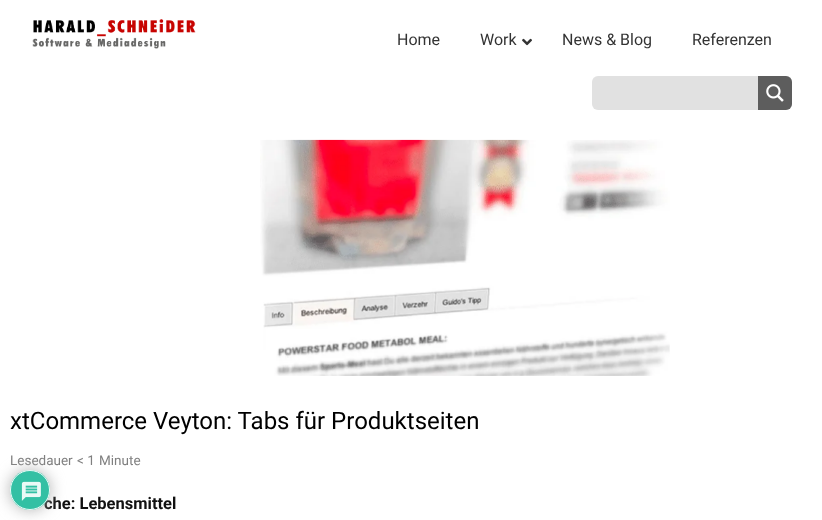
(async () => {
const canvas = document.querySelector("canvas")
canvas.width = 822
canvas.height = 520
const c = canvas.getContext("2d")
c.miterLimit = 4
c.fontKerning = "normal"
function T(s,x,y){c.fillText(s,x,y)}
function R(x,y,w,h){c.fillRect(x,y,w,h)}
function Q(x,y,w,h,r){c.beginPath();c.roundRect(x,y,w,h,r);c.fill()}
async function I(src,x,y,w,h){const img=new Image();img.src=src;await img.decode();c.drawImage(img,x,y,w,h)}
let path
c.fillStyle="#fff"
R(0,0,822,520)
await I("4.png",260,139,410,237)
c.fillStyle="#ffffffe6"
R(260,139,389,1)
await I("1.png",32,19,164,30)
c.font="16px Roboto"
c.fillStyle="#333"
T("Home",397,45)
T("Work",480,45)
await I("2.png",522,38,10,8)
T("News & Blog",562,45)
T("Referenzen",692,45)
c.fillStyle="#e1e1e1"
Q(592,76,200,34,6)
c.fillStyle="#5d5d5d"
c.beginPath()
c.roundRect(758,76,34,34,[0,6,6,0])
c.fill()
await I("3.png",766,84,18,18)
c.font="24px Roboto"
c.fillStyle="#000"
T("xtCommerce Veyton: Tabs für Produktseiten",10,429)
c.font="13.5px Roboto"
c.fillStyle="#808080"
T("Lesedauer",10,465)
T("< 1",77,465)
T("Minute",99,465)
c.font="bold 16.5px Roboto"
c.fillStyle="#111"
T("che: Lebensmittel",44,509)
c.save()
path = new Path2D("M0 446h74v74h-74zm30 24c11 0 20 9 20 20c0 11-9 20-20 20c-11 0-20-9-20-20c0-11 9-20 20-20z")
c.clip(path,"evenodd")
c.fillStyle="#aaaaaae6"
c.filter="blur(7.5px)"
c.beginPath()
c.roundRect(10,470,40,40,20)
c.fill()
c.filter="none"
c.restore()
c.fillStyle="#1db99ae6"
c.beginPath()
c.arc(30,490,20,0,7)
c.fill()
c.beginPath()
c.arc(30,490,19.5,0,7)
c.strokeStyle="#ffffffe6"
c.stroke()
await I("5.png",21,481,20,20)
})()
